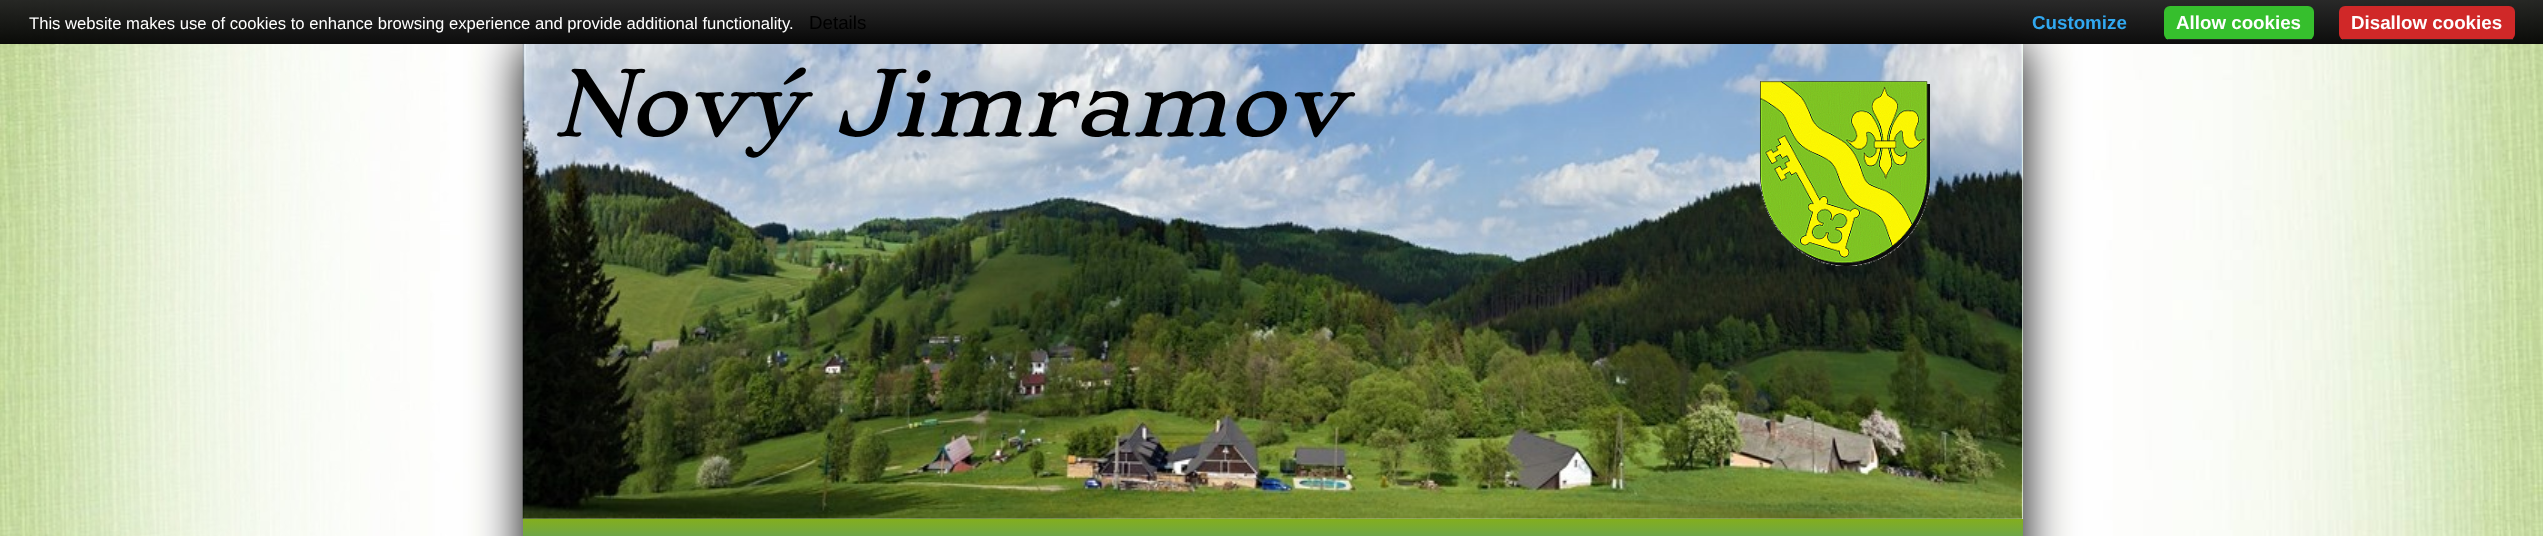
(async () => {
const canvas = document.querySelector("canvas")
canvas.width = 2543
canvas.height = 536
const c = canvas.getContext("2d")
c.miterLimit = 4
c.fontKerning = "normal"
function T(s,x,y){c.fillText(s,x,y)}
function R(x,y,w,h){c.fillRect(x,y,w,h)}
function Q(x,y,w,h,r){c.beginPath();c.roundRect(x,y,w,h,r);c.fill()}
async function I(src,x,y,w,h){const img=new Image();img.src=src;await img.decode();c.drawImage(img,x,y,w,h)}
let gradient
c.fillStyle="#fff"
R(0,0,2543,536)
await I("1.png",0,0,2543,536)
c.fillStyle="#000"
c.filter="blur(25px)"
c.beginPath()
c.rect(523,44,1500,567)
c.fill()
c.filter="none"
c.fillStyle="#eefdef"
R(523,44,1500,475)
await I("2.png",522,43,1501,476)
gradient = c.createLinearGradient(1272,0,1272,44)
gradient.addColorStop(0,"#1e1e1ef2")
gradient.addColorStop(1,"#000000f2")
c.fillStyle = gradient
R(0,0,2543,44)
c.font="16.65px Liberation Sans"
c.fillStyle="#fff"
T("This website makes use of cookies to enhance browsing experience and provide additional functionality.",29,29)
c.font="18.75px Liberation Sans"
c.fillStyle="#000"
T("Details",809,29)
c.font="bold 18.75px Liberation Sans"
c.fillStyle="#31a8f0"
T("Customize",2032,29)
c.fillStyle="#36bf2d"
Q(2164,6,150,34,6)
c.fillStyle="#222"
R(2168,39,143,1)
c.fillStyle="#fff"
T("Allow cookies",2176,29)
c.fillStyle="#d02828"
Q(2339,6,176,34,6)
c.fillStyle="#222"
R(2343,39,170,1)
c.fillStyle="#fff"
T("Disallow cookies",2351,29)
c.font="italic 87.5px Stoke"
c.fillStyle="#000"
T("Nový Jimramov",553,136)
await I("3.png",1760,81,170,185)
gradient = c.createLinearGradient(1273,519,1273,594)
gradient.addColorStop(0,"#83ae1d")
gradient.addColorStop(1,"#2989d8")
c.fillStyle = gradient
R(523,519,1500,17)
})()
